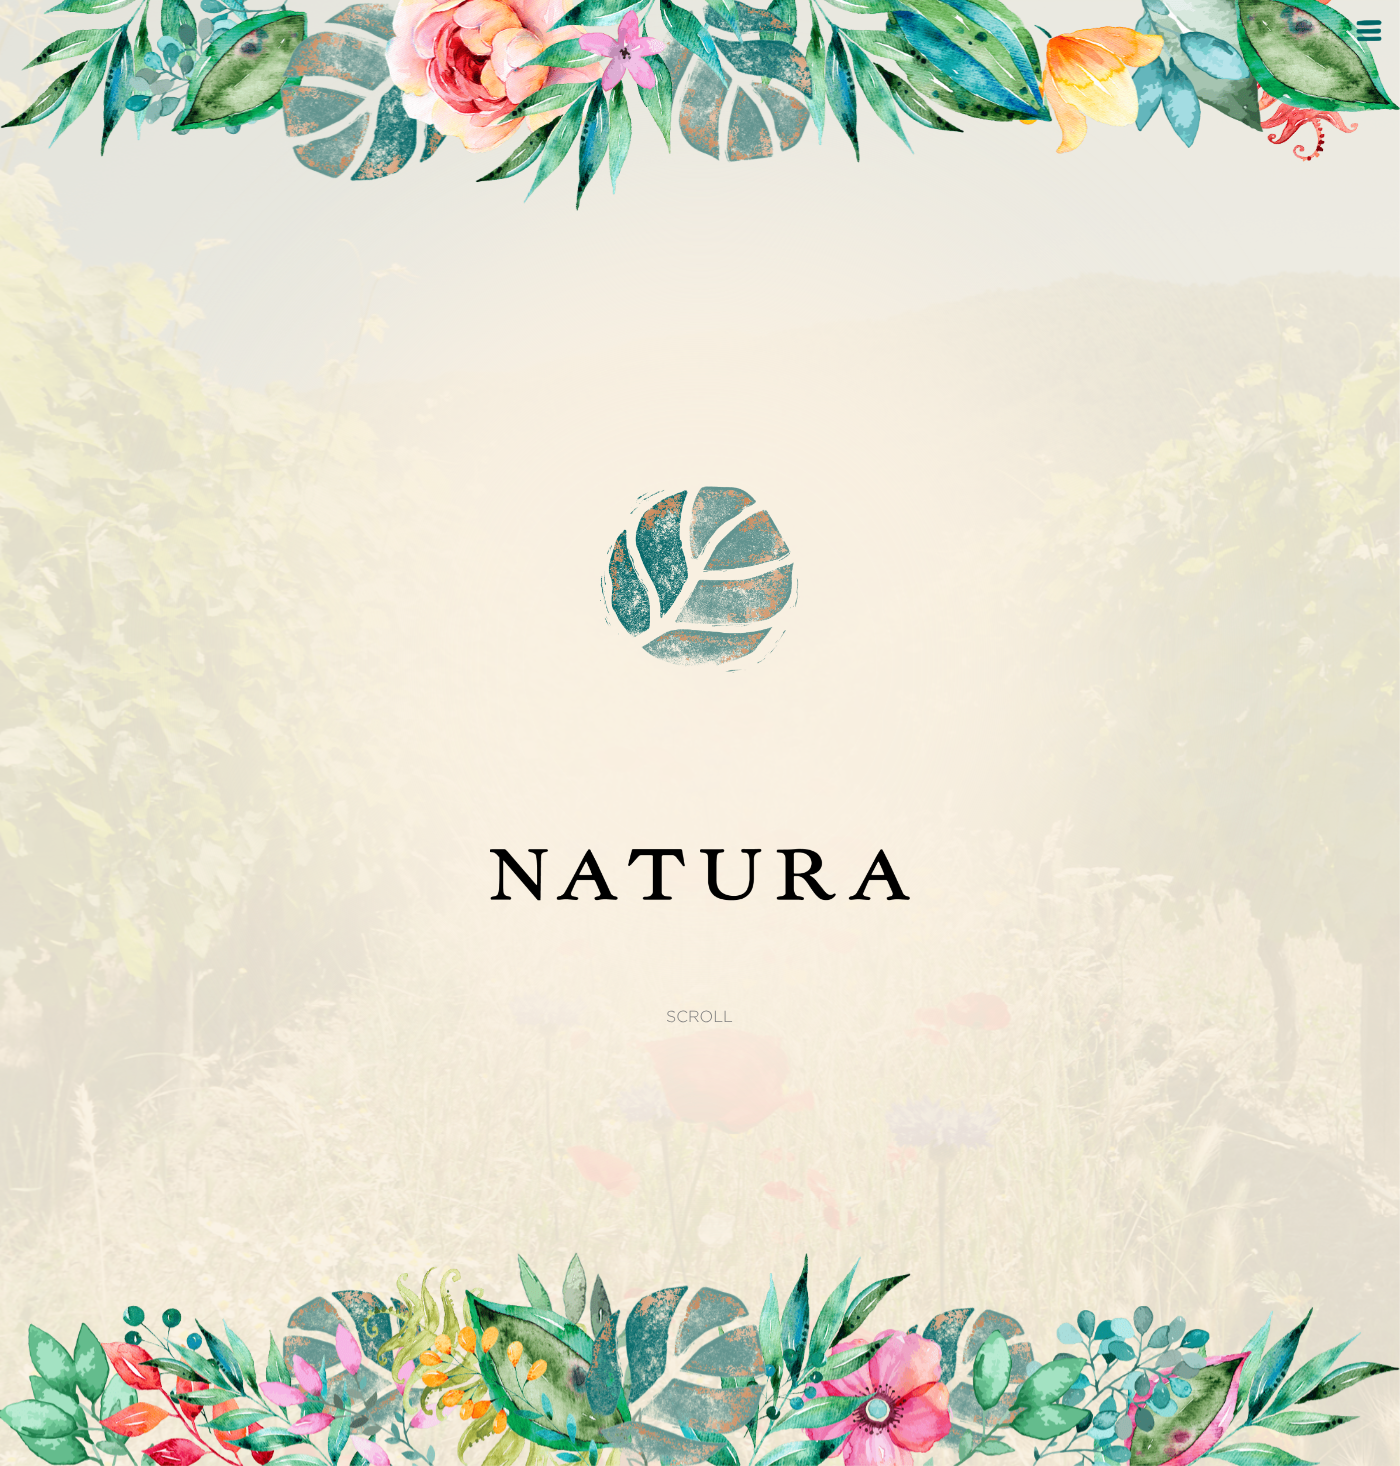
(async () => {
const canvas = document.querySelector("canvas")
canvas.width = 1400
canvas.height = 1466
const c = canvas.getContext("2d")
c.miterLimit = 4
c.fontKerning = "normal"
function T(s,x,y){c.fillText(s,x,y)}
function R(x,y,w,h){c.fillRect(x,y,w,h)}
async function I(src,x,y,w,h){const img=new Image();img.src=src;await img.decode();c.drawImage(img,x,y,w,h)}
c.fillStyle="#fff"
R(0,0,1400,1466)
await I("2.png",0,0,1400,1466)
c.fillStyle="#f9f1e2e6"
c.filter="blur(100px)"
c.beginPath()
c.roundRect(280,223,840,880,420)
c.fill()
c.filter="none"
await I("3.png",0,0,1400,211)
await I("1.png",1356,20,26,22)
await I("4.png",0,1252,1400,214)
await I("5.png",600,486,200,187)
await I("6.png",490,848,420,53)
c.font="300 16px Gotham"
c.fillStyle="#7d7d7d"
T("SCROLL",666,1022)
})()
